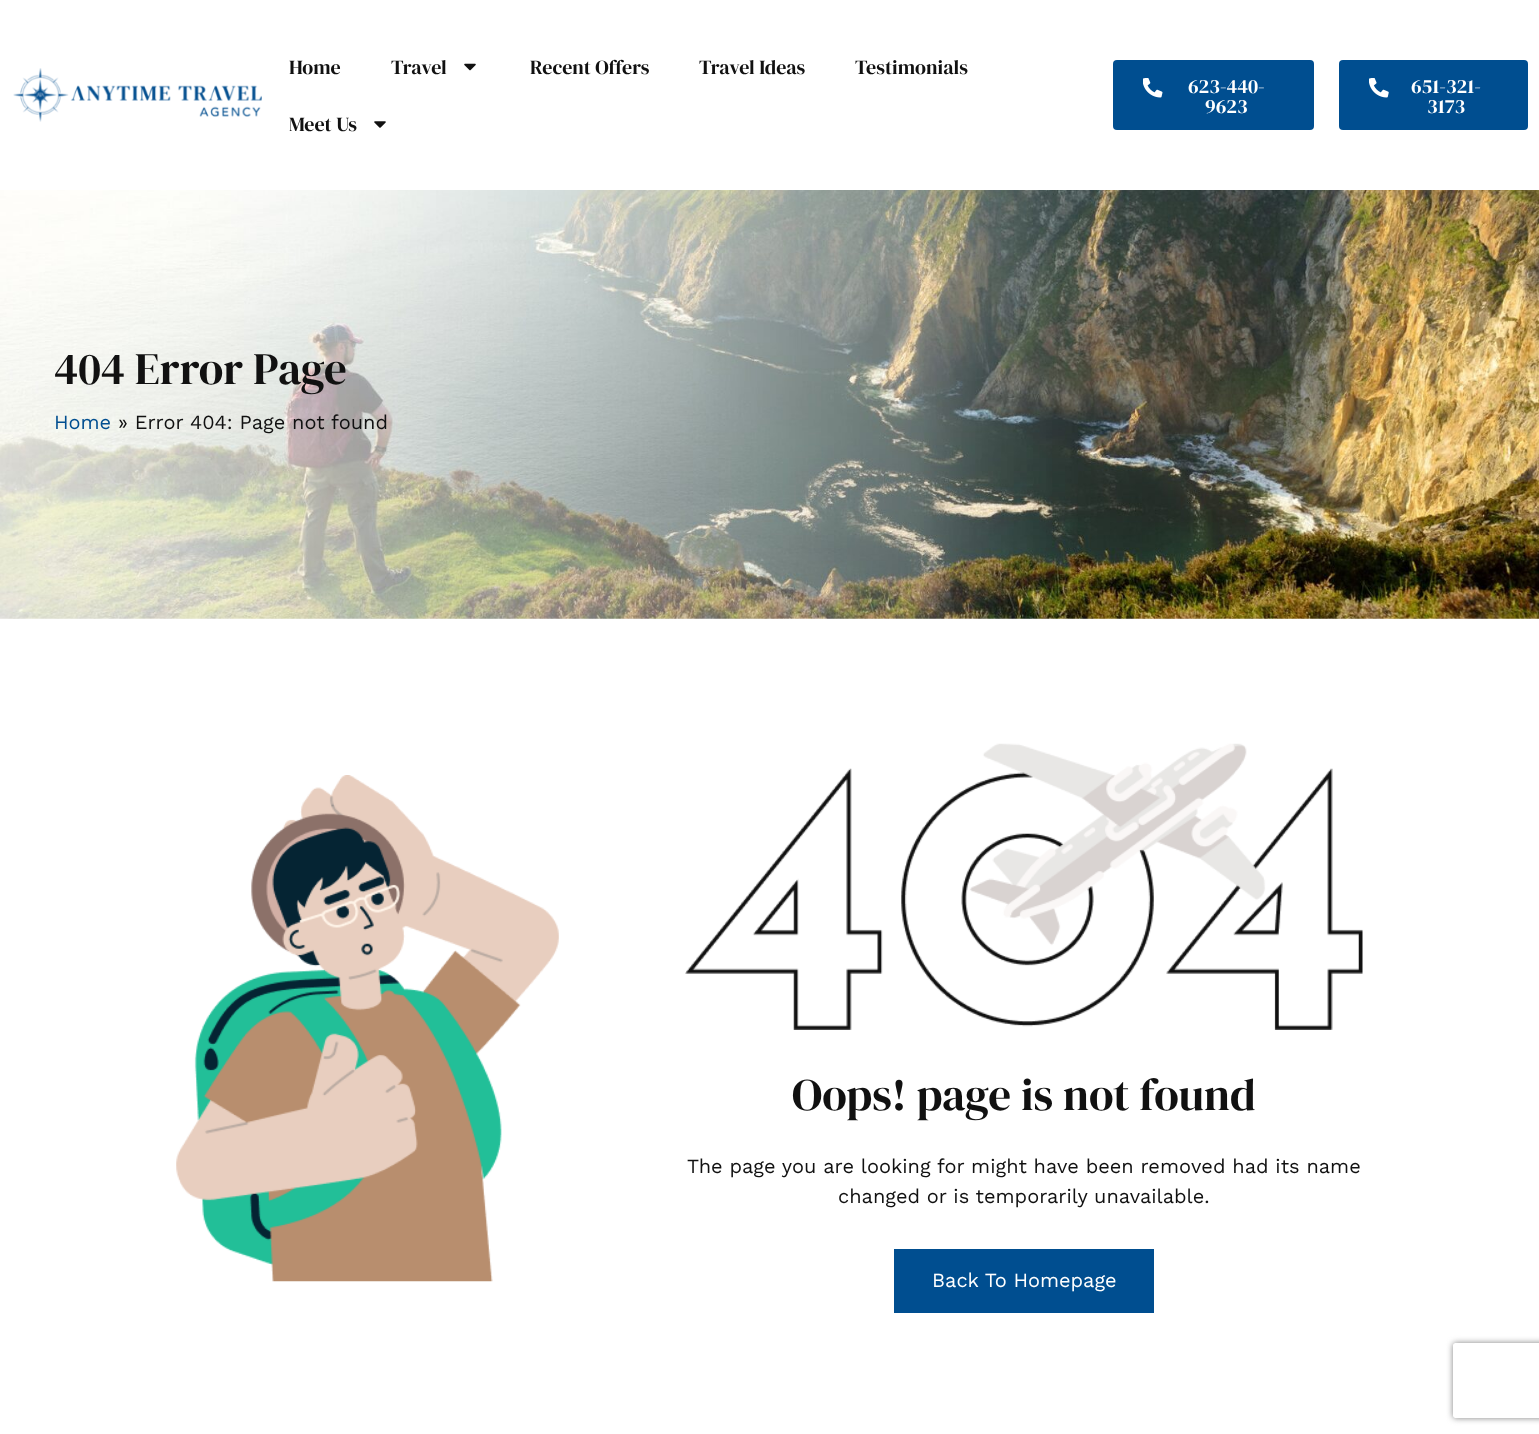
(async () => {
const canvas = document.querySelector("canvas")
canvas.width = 1539
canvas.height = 1434
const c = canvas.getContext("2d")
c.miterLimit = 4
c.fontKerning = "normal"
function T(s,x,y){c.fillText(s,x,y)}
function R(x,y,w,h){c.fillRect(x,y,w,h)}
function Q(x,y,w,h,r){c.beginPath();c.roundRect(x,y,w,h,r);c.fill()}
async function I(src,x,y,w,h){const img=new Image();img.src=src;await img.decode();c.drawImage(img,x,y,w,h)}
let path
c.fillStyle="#fff"
R(0,0,1539,1434)
await I("1.png",13,68,249,54)
c.font="20px DM Serif Display"
c.fillStyle="#111"
T("Home",289,74)
T("Travel",391,74)
await I("2.png",464,63,12,8)
T("Recent Offers",530,74)
T("Travel Ideas",699,74)
T("Testimonials",855,74)
T("Meet Us",289,131)
await I("3.png",374,121,12,7)
c.fillStyle="#004e90"
Q(1113,60,201,70,4)
await I("4.png",1143,78,20,20)
c.fillStyle="#fff"
T("623-440-",1188,93)
T("9623",1205,113)
c.fillStyle="#004e90"
Q(1339,60,189,70,4)
await I("5.png",1369,78,20,20)
c.fillStyle="#fff"
T("651-321-",1411,93)
T("3173",1427,113)
await I("6.png",0,190,1539,429)
c.font="45px DM Serif Display"
c.fillStyle="#111"
T("404 Error Page",54,384)
c.font="20px Work Sans"
c.fillStyle="#004e90"
T("Home",54,429)
c.fillStyle="#111"
T("» Error 404: Page not found",118,429)
await I("7.png",176,775,383,507)
await I("8.png",685,743,678,287)
c.font="45px DM Serif Display"
T("Oops! page is not found",792,1110)
c.font="20px Work Sans"
T("The page you are looking for might have been removed had its name",687,1173)
T("changed or is temporarily unavailable.",838,1203)
c.fillStyle="#004e90"
R(894,1249,260,64)
c.fillStyle="#fff"
T("Back To Homepage",932,1287)
c.save()
path = new Path2D("M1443 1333h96v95h-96zm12.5 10h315c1.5 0 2.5 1 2.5 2.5v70c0 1.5-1 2.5-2.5 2.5h-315c-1.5 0-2.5-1-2.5-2.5v-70c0-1.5 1-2.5 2.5-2.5z")
c.clip(path,"evenodd")
c.fillStyle="#808080"
c.filter="blur(3px)"
c.beginPath()
c.roundRect(1453,1343,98,75,2.5)
c.fill()
c.filter="none"
c.restore()
})()
